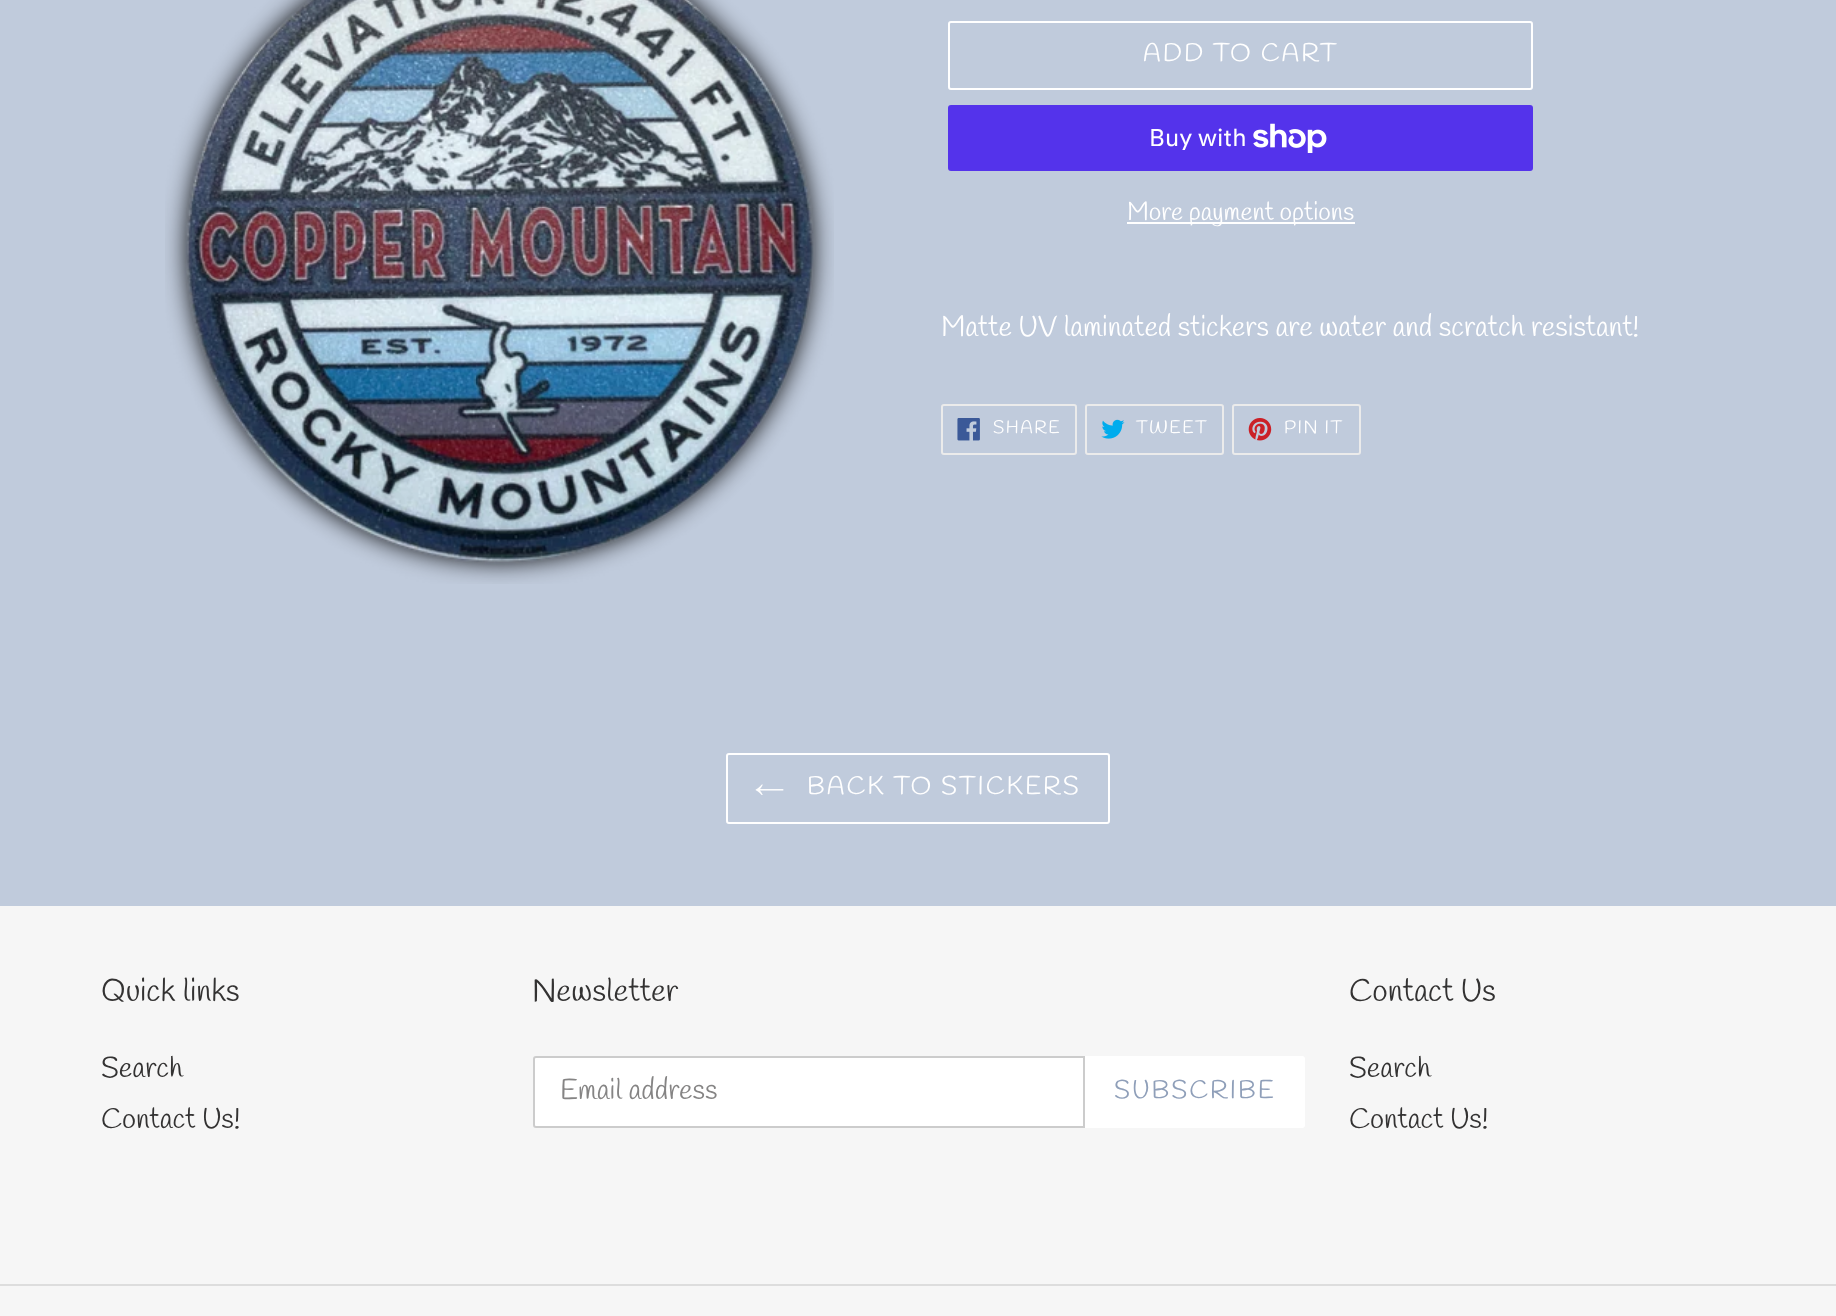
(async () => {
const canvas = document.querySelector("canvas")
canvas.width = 1836
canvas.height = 1316
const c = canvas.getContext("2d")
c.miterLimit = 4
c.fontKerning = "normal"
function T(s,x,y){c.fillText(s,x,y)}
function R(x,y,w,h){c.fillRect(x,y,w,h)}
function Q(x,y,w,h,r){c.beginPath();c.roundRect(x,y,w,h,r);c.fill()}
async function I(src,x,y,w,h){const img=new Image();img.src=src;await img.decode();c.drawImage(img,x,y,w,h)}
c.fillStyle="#c0cbdc"
R(0,0,1836,1316)
await I("1.png",165,0,669,584)
c.beginPath()
c.roundRect(949,22,583,67,2)
c.strokeStyle="#fff"
c.lineWidth=2
c.stroke()
c.letterSpacing="2px"
c.font="25.5px Handlee"
c.fillStyle="#fff"
T("ADD TO CART",1143,61)
c.fillStyle="#5433eb"
Q(948,105,585,66,3)
c.letterSpacing="0px"
c.font="24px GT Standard"
c.fillStyle="#fff"
T("Buy with",1149,146)
await I("2.png",1253,123,74,30)
R(1127,222,228,2)
c.font="25.5px Handlee"
T("More payment options",1127,220)
c.font="28.5px Handlee"
T("Matte UV laminated stickers are water and scratch resistant!",941,336)
c.beginPath()
c.roundRect(942,405,134,49,2)
c.strokeStyle="#ebebeb"
c.stroke()
await I("3.png",957,418,23,23)
c.letterSpacing="1.5px"
c.font="18px Handlee"
T("SHARE",993,433)
c.beginPath()
c.roundRect(1086,405,137,49,2)
c.stroke()
await I("4.png",1101,419,24,20)
T("TWEET",1136,433)
c.beginPath()
c.roundRect(1233,405,127,49,2)
c.stroke()
await I("5.png",1248,418,24,23)
T("PIN IT",1284,433)
c.beginPath()
c.roundRect(727,754,382,69,2)
c.strokeStyle="#fff"
c.stroke()
await I("6.png",755,784,29,11)
c.letterSpacing="2px"
c.font="25.5px Handlee"
T("BACK TO STICKERS",807,794)
c.fillStyle="#f6f6f6"
R(0,906,1836,410)
c.letterSpacing="0px"
c.font="31.5px Handlee"
c.fillStyle="#333232"
T("Quick links",101,1001)
c.font="28.5px Handlee"
T("Search",101,1077)
T("Contact Us!",101,1128)
c.font="31.5px Handlee"
T("Newsletter",532,1001)
c.fillStyle="#fff"
c.beginPath()
c.roundRect(534,1057,550,70,[2,0,0,2])
c.fill()
c.strokeStyle="#ccc"
c.stroke()
c.font="28.5px Handlee"
c.fillStyle="#858484"
T("Email address",560,1099)
c.fillStyle="#fff"
c.beginPath()
c.roundRect(1085,1056,220,72,[0,3,3,0])
c.fill()
c.letterSpacing="2px"
c.font="25.5px Handlee"
c.fillStyle="#8f9fb9"
T("SUBSCRIBE",1114,1098)
c.letterSpacing="0px"
c.font="31.5px Handlee"
c.fillStyle="#333232"
T("Contact Us",1349,1001)
c.font="28.5px Handlee"
T("Search",1349,1077)
T("Contact Us!",1349,1128)
c.fillStyle="#ddd"
R(0,1284,1836,2)
})()
